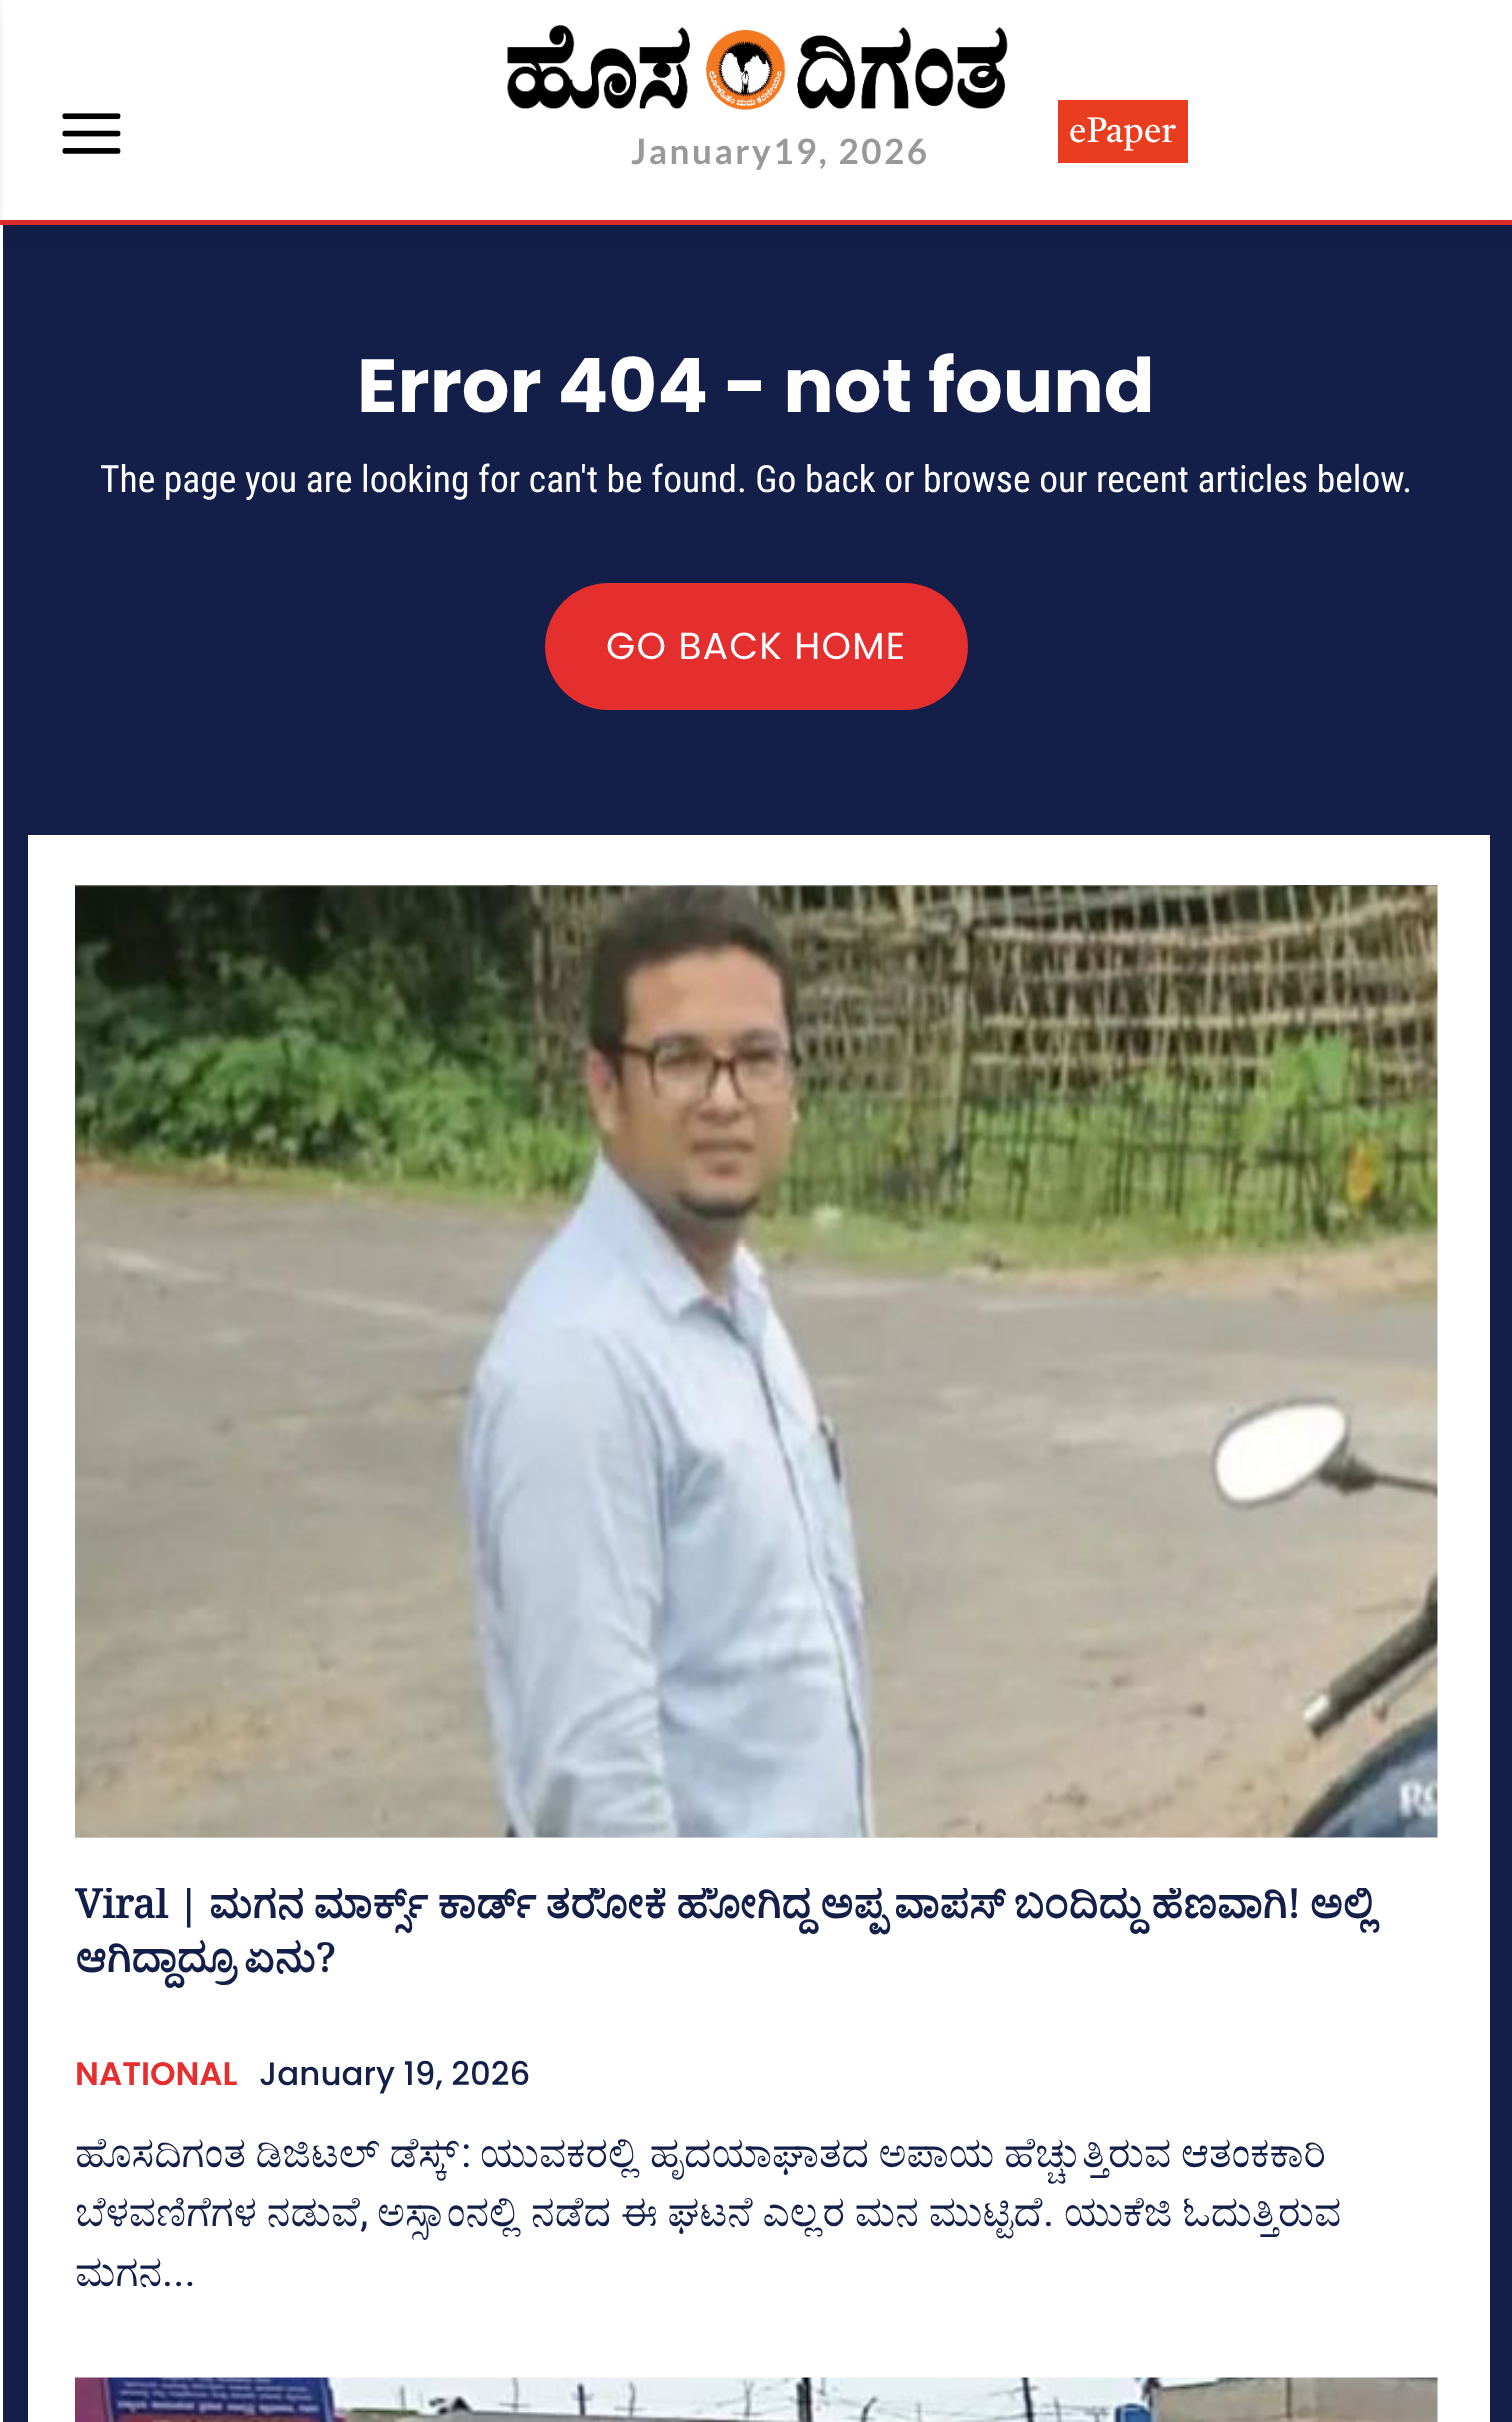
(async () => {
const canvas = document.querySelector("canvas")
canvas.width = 1512
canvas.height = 2422
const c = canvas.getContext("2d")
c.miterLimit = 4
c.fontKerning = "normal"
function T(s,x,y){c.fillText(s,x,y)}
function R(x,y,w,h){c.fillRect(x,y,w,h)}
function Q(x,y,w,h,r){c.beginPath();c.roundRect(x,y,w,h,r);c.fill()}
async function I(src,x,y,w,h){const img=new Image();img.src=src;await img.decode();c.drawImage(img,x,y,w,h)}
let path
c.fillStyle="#fff"
R(0,0,1512,2422)
c.fillStyle="#e52e2e"
R(0,220,1512,5)
await I("1.png",62,113,59,41)
await I("2.png",507,25,501,85)
c.fillStyle="#ea3c1f"
R(1058,100,130,63)
c.fillStyle="#131f49"
R(3,225,1509,2197)
c.save()
path = new Path2D("M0 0h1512v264h-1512zm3 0h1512v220h-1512z")
c.clip(path,"evenodd")
c.fillStyle="#00000017"
c.filter="blur(12.5px)"
c.beginPath()
c.rect(3,5,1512,220)
c.fill()
c.filter="none"
c.restore()
c.letterSpacing="2.5px"
c.font="bold 35px Lato"
c.fillStyle="#999"
T("January19, 2026",631,164)
c.letterSpacing="0px"
c.font="35px Tiro Kannada"
c.fillStyle="#fff"
T("ePaper",1069,142)
c.font="bold 75px Poppins"
T("Error 404 - not found",357,412)
c.font="37.5px Roboto Condensed"
T("The page you are looking for can't be found. Go back or browse our recent articles below.",100,492)
c.fillStyle="#e52e2e"
Q(545,583,423,127,63.5)
c.letterSpacing="1.25px"
c.font="37.5px Poppins"
c.fillStyle="#fff"
T("GO BACK HOME",606,659)
R(28,835,1462,1587)
await I("3.png",75,885,1363,953)
c.save()
c.beginPath()
c.rect(75,1888,1363,107)
c.clip()
c.letterSpacing="0px"
c.font="bold 40px Noto Serif Kannada"
c.fillStyle="#131f49"
T("Viral | ಮಗನ ಮಾರ್ಕ್ಸ್ ಕಾರ್ಡ್ ತರೋಕೆ ಹೋಗಿದ್ದ ಅಪ್ಪ ವಾಪಸ್ ಬಂದಿದ್ದು ಹೆಣವಾಗಿ! ಅಲ್ಲಿ",75,1918)
c.restore()
c.letterSpacing="0px"
c.font="bold 40px Noto Serif Kannada"
c.fillStyle="#131f49"
T("ಆಗಿದ್ದಾದ್ರೂ ಏನು?",75,1972)
c.font="600 32.5px Poppins"
c.fillStyle="#e52e2e"
T("NATIONAL",75,2085)
c.font="500 32.5px Poppins"
c.fillStyle="#131f49"
T("January 19, 2026",259,2085)
c.wordSpacing="-1px"
c.font="42.5px FreeSerif"
T("ಹೊಸದಿಗಂತ ಡಿಜಿಟಲ್ ಡೆಸ್ಕ್",75,2167)
c.wordSpacing="0px"
c.font="42.5px Roboto Condensed"
T(":",461,2167)
c.wordSpacing="-1px"
c.font="42.5px FreeSerif"
T("ಯುವಕರಲ್ಲಿ ಹೃದಯಾಘಾತದ ಅಪಾಯ ಹೆಚ್ಚುತ್ತಿರುವ ಆತಂಕಕಾರಿ",480,2167)
c.wordSpacing="-0.75px"
T("ಬೆಳವಣಿಗೆಗಳ ನಡುವೆ",75,2226)
c.wordSpacing="0px"
c.font="42.5px Roboto Condensed"
T(",",360,2226)
c.wordSpacing="-0.75px"
c.font="42.5px FreeSerif"
T("ಅಸ್ಸಾಂನಲ್ಲಿ ನಡೆದ ಈ ಘಟನೆ ಎಲ್ಲರ ಮನ ಮುಟ್ಟಿದೆ",377,2226)
c.wordSpacing="0px"
c.font="42.5px Roboto Condensed"
T(".",1043,2226)
c.wordSpacing="-0.75px"
c.font="42.5px FreeSerif"
T("ಯುಕೆಜಿ ಓದುತ್ತಿರುವ",1064,2226)
c.wordSpacing="0px"
T("ಮಗನ",75,2286)
c.font="42.5px Roboto Condensed"
T("...",162,2286)
await I("4.png",75,2377,1363,45)
})()
